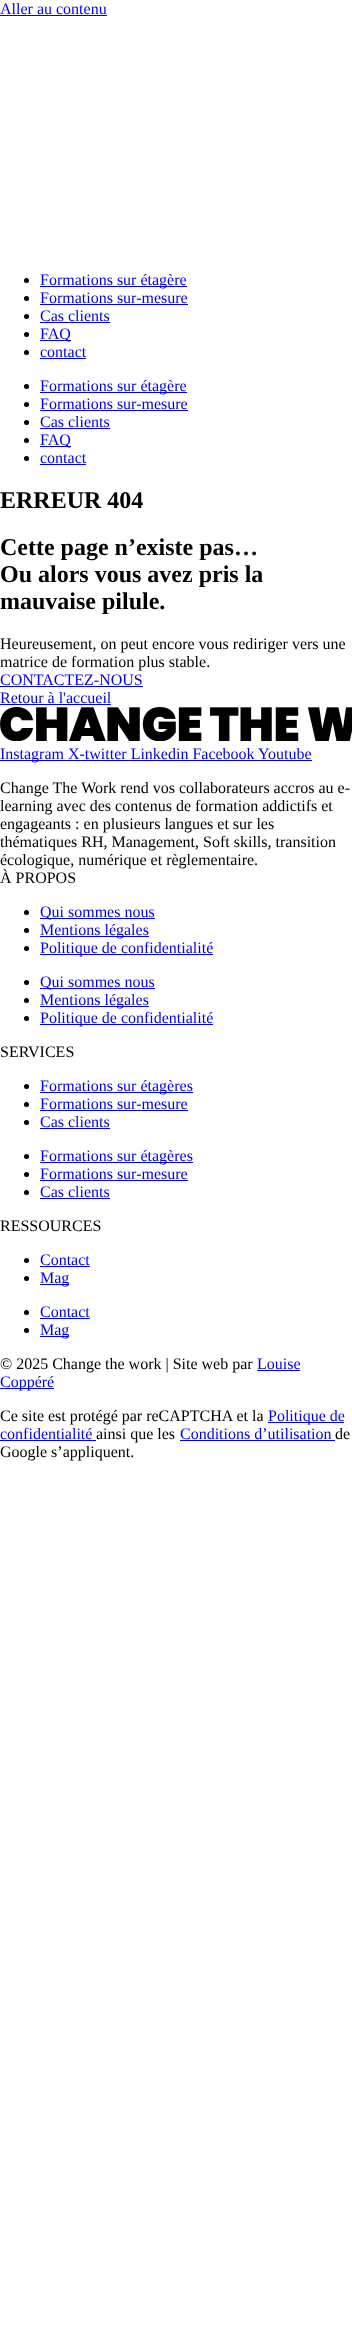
(async () => {
const canvas = document.querySelector("canvas")
canvas.width = 352
canvas.height = 2335
const c = canvas.getContext("2d")
c.miterLimit = 4
c.fontKerning = "normal"
function T(s,x,y){c.fillText(s,x,y)}
function R(x,y,w,h){c.fillRect(x,y,w,h)}
async function I(src,x,y,w,h){const img=new Image();img.src=src;await img.decode();c.drawImage(img,x,y,w,h)}
c.fillStyle="#fff"
R(0,0,352,2335)
c.font="16px Liberation Serif"
c.fillStyle="#00e"
T("Aller au contenu",0,14)
R(0,15,107,1)
c.fillStyle="#000"
c.beginPath()
c.arc(26.5,280.5,2.5,0,7)
c.fill()
c.fillStyle="#00e"
R(40,286,147,1)
T("Formations sur étagère",40,285)
c.fillStyle="#000"
c.beginPath()
c.arc(26.5,298.5,2.5,0,7)
c.fill()
c.fillStyle="#00e"
T("Formations sur-mesure",40,303)
R(40,304,148,1)
c.fillStyle="#000"
c.beginPath()
c.arc(26.5,316.5,2.5,0,7)
c.fill()
c.fillStyle="#00e"
T("Cas clients",40,321)
R(40,322,70,1)
c.fillStyle="#000"
c.beginPath()
c.arc(26.5,334.5,2.5,0,7)
c.fill()
c.fillStyle="#00e"
R(40,340,31,1)
T("FAQ",40,339)
c.fillStyle="#000"
c.beginPath()
c.arc(26.5,352.5,2.5,0,7)
c.fill()
c.fillStyle="#00e"
T("contact",40,357)
R(40,358,46,1)
c.fillStyle="#000"
c.beginPath()
c.arc(26.5,386.5,2.5,0,7)
c.fill()
c.fillStyle="#00e"
R(40,392,147,1)
T("Formations sur étagère",40,391)
c.fillStyle="#000"
c.beginPath()
c.arc(26.5,404.5,2.5,0,7)
c.fill()
c.fillStyle="#00e"
T("Formations sur-mesure",40,409)
R(40,410,148,1)
c.fillStyle="#000"
c.beginPath()
c.arc(26.5,422.5,2.5,0,7)
c.fill()
c.fillStyle="#00e"
T("Cas clients",40,427)
R(40,428,70,1)
c.fillStyle="#000"
c.beginPath()
c.arc(26.5,440.5,2.5,0,7)
c.fill()
c.fillStyle="#00e"
R(40,446,31,1)
T("FAQ",40,445)
c.fillStyle="#000"
c.beginPath()
c.arc(26.5,458.5,2.5,0,7)
c.fill()
c.fillStyle="#00e"
T("contact",40,463)
R(40,464,46,1)
c.font="bold 24px Liberation Serif"
c.fillStyle="#000"
T("ERREUR 404",0,508)
T("Cette page n’existe pas…",0,555)
T("Ou alors vous avez pris la",0,582)
T("mauvaise pilule.",0,609)
c.font="16px Liberation Serif"
T("Heureusement, on peut encore vous rediriger vers une",0,649)
T("matrice de formation plus stable.",0,667)
c.fillStyle="#00e"
T("CONTACTEZ-NOUS",0,685)
R(0,686,143,1)
T("Retour à l'accueil",0,703)
R(0,704,111,1)
await I("1.png",0,707,352,34)
R(0,760,188,1)
T("Instagram X-twitter Linkedin Facebook",0,759)
T("Youtube",258,759)
R(188,760,124,1)
c.fillStyle="#000"
T("Change The Work rend vos collaborateurs accros au e-",0,793)
T("learning avec des contenus de formation addictifs et",0,811)
T("engageants : en plusieurs langues et sur les",0,829)
T("thématiques RH, Management, Soft skills, transition",0,847)
T("écologique, numérique et règlementaire.",0,865)
T("À PROPOS",0,883)
c.beginPath()
c.arc(26.5,912.5,2.5,0,7)
c.fill()
c.fillStyle="#00e"
R(40,918,115,1)
T("Qui sommes nous",40,917)
c.fillStyle="#000"
c.beginPath()
c.arc(26.5,930.5,2.5,0,7)
c.fill()
c.fillStyle="#00e"
R(40,936,109,1)
T("Mentions légales",40,935)
c.fillStyle="#000"
c.beginPath()
c.arc(26.5,948.5,2.5,0,7)
c.fill()
c.fillStyle="#00e"
R(40,954,173,1)
T("Politique de confidentialité",40,953)
c.fillStyle="#000"
c.beginPath()
c.arc(26.5,982.5,2.5,0,7)
c.fill()
c.fillStyle="#00e"
R(40,988,115,1)
T("Qui sommes nous",40,987)
c.fillStyle="#000"
c.beginPath()
c.arc(26.5,1000.5,2.5,0,7)
c.fill()
c.fillStyle="#00e"
R(40,1006,109,1)
T("Mentions légales",40,1005)
c.fillStyle="#000"
c.beginPath()
c.arc(26.5,1018.5,2.5,0,7)
c.fill()
c.fillStyle="#00e"
R(40,1024,173,1)
T("Politique de confidentialité",40,1023)
c.fillStyle="#000"
T("SERVICES",0,1057)
c.beginPath()
c.arc(26.5,1086.5,2.5,0,7)
c.fill()
c.fillStyle="#00e"
R(40,1092,153,1)
T("Formations sur étagères",40,1091)
c.fillStyle="#000"
c.beginPath()
c.arc(26.5,1104.5,2.5,0,7)
c.fill()
c.fillStyle="#00e"
T("Formations sur-mesure",40,1109)
R(40,1110,148,1)
c.fillStyle="#000"
c.beginPath()
c.arc(26.5,1122.5,2.5,0,7)
c.fill()
c.fillStyle="#00e"
T("Cas clients",40,1127)
R(40,1128,70,1)
c.fillStyle="#000"
c.beginPath()
c.arc(26.5,1156.5,2.5,0,7)
c.fill()
c.fillStyle="#00e"
R(40,1162,153,1)
T("Formations sur étagères",40,1161)
c.fillStyle="#000"
c.beginPath()
c.arc(26.5,1174.5,2.5,0,7)
c.fill()
c.fillStyle="#00e"
T("Formations sur-mesure",40,1179)
R(40,1180,148,1)
c.fillStyle="#000"
c.beginPath()
c.arc(26.5,1192.5,2.5,0,7)
c.fill()
c.fillStyle="#00e"
T("Cas clients",40,1197)
R(40,1198,70,1)
c.fillStyle="#000"
T("RESSOURCES",0,1231)
c.beginPath()
c.arc(26.5,1260.5,2.5,0,7)
c.fill()
c.fillStyle="#00e"
T("Contact",40,1265)
R(40,1266,50,1)
c.fillStyle="#000"
c.beginPath()
c.arc(26.5,1278.5,2.5,0,7)
c.fill()
c.fillStyle="#00e"
R(40,1284,29,1)
T("Mag",40,1283)
c.fillStyle="#000"
c.beginPath()
c.arc(26.5,1312.5,2.5,0,7)
c.fill()
c.fillStyle="#00e"
T("Contact",40,1317)
R(40,1318,50,1)
c.fillStyle="#000"
c.beginPath()
c.arc(26.5,1330.5,2.5,0,7)
c.fill()
c.fillStyle="#00e"
R(40,1336,29,1)
T("Mag",40,1335)
c.fillStyle="#000"
T("© 2025 Change the work | Site web par",0,1369)
c.fillStyle="#00e"
T("Louise",257,1369)
R(257,1370,43,1)
R(0,1388,54,1)
T("Coppéré",0,1387)
c.fillStyle="#000"
T("Ce site est protégé par reCAPTCHA et la",0,1421)
c.fillStyle="#00e"
R(268,1422,76,1)
T("Politique de",268,1421)
T("confidentialité",0,1439)
R(0,1440,96,1)
c.fillStyle="#000"
T("ainsi que les",96,1439)
c.fillStyle="#00e"
T("Conditions d’utilisation",180,1439)
R(180,1440,155,1)
c.fillStyle="#000"
T("de",335,1439)
T("Google s’appliquent.",0,1457)
})()
